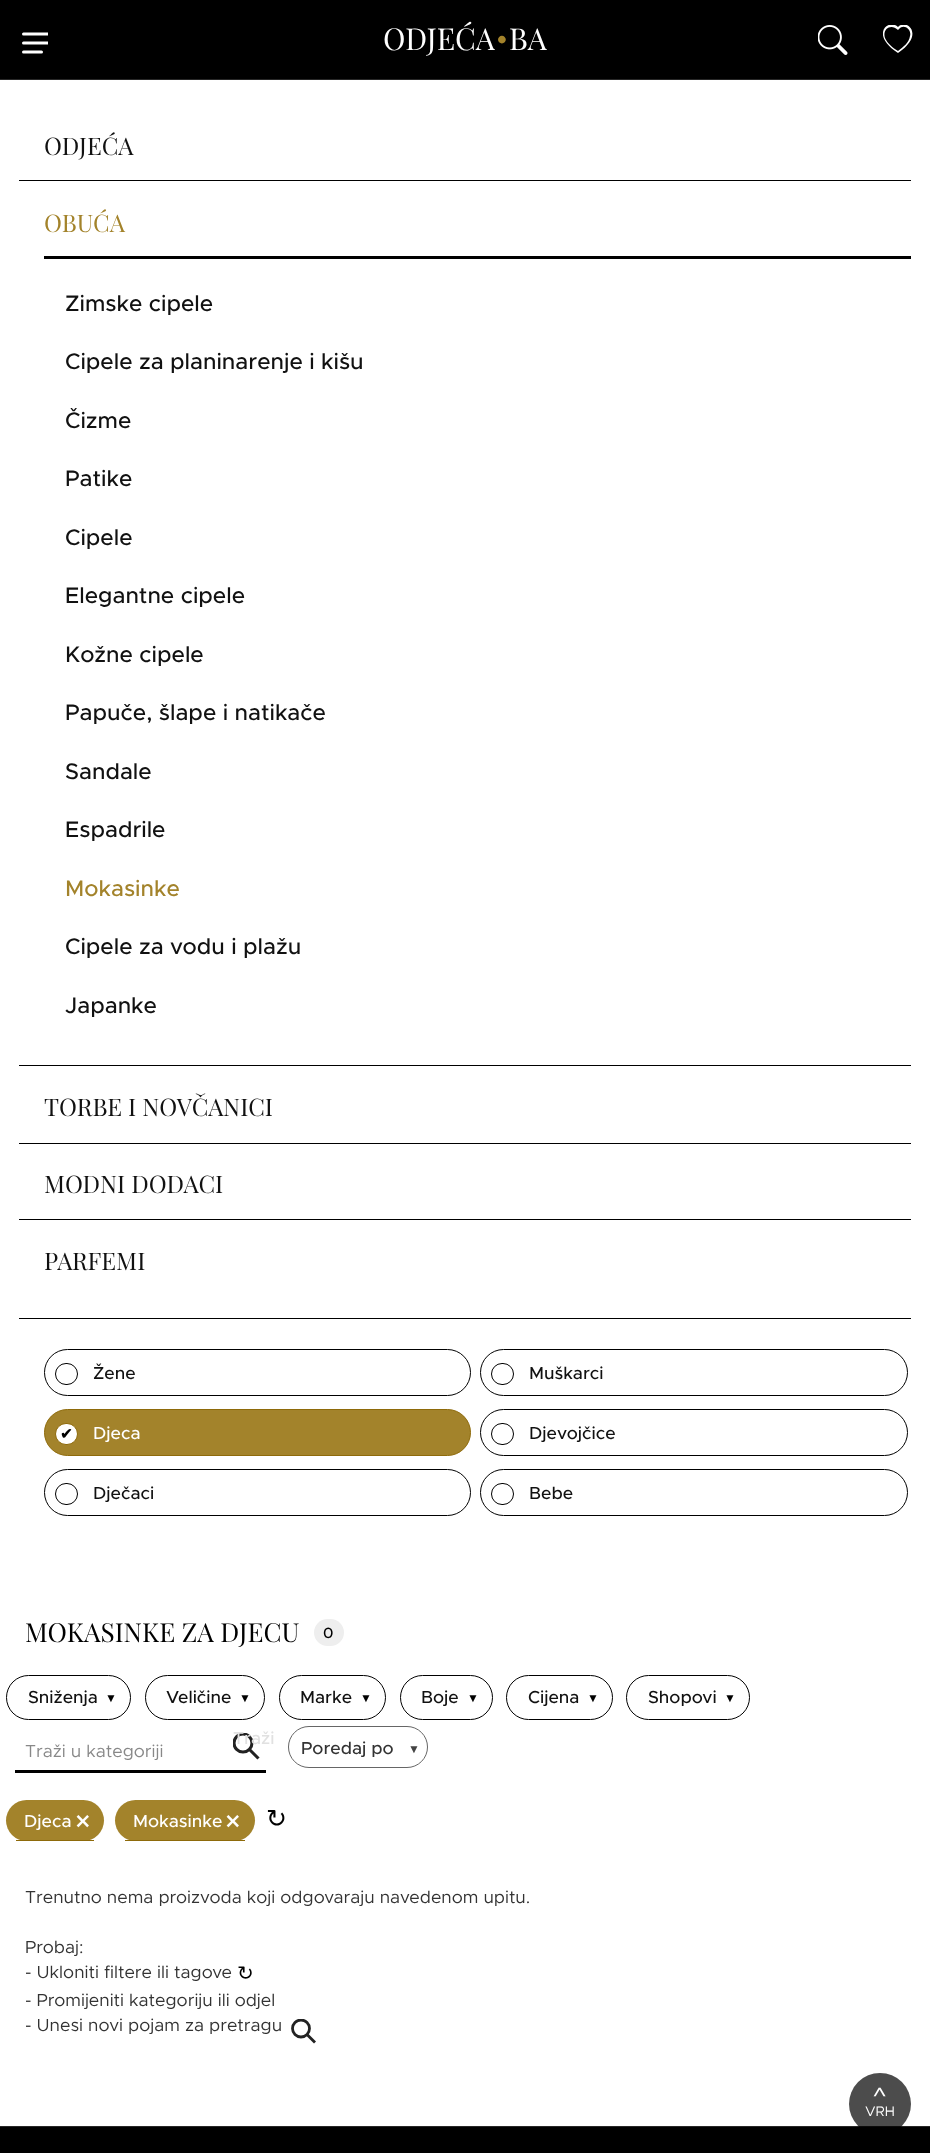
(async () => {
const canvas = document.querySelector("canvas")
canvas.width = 930
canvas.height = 2153
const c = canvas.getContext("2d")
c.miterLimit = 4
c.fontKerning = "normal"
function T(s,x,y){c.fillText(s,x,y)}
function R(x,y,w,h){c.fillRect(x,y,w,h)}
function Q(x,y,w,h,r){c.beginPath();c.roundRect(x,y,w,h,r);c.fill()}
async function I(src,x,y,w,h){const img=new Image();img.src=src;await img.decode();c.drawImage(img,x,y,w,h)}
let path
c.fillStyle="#fff"
R(0,0,930,2153)
c.fillStyle="#000"
R(0,0,930,79)
c.fillStyle="#272727"
R(0,79,930,1)
c.save()
c.beginPath()
c.rect(18,25,30,30)
c.clip()
path = new Path2D("M23.5 43h27m-27-9h27m-27 18h18")
c.strokeStyle="#fff"
c.lineWidth=3
c.lineCap="round"
c.lineJoin="round"
c.stroke(path)
c.restore()
c.font="37.5px Playfair Display"
c.fillStyle="#fff"
T("ODJEĆA",383,50)
c.font="75px Playfair Display"
c.fillStyle="#a3832b"
T("˙",495,82)
c.font="37.5px Playfair Display"
c.fillStyle="#fff"
T("BA",509,50)
await I("1.png",818,25,30,30)
c.save()
c.beginPath()
c.rect(883,25,30,30)
c.clip()
path = new Path2D("M898 30c-7-7-16-1-13 8c2 5 8 10 13 13c5-4 11-8 12-15c2-6-6-13-11-7zm0 23c-29-19-9-35 0-26c8-9 28 7 0 26")
c.fill(path)
c.restore()
c.fillStyle="#000"
R(19,1318,892,1)
R(19,180,892,1)
c.font="30px Playfair Display"
c.fillStyle="#111"
T("ODJEĆA",44,155)
c.fillStyle="#000"
R(19,1065,892,1)
c.fillStyle="#a3832b"
T("OBUĆA",44,232)
c.fillStyle="#000"
R(44,256,867,3)
c.font="500 22.5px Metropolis"
c.fillStyle="#111"
T("Zimske cipele",65,311)
T("Cipele za planinarenje i kišu",65,369)
T("Čizme",65,428)
T("Patike",65,486)
T("Cipele",65,545)
T("Elegantne cipele",65,603)
T("Kožne cipele",65,662)
T("Papuče, šlape i natikače",65,720)
T("Sandale",65,779)
T("Espadrile",65,837)
c.fillStyle="#a3832b"
T("Mokasinke",65,896)
c.fillStyle="#111"
T("Cipele za vodu i plažu",65,954)
T("Japanke",65,1013)
c.fillStyle="#000"
R(19,1143,892,1)
c.font="30px Playfair Display"
c.fillStyle="#111"
T("TORBE I NOVČANICI",44,1116)
c.fillStyle="#000"
R(19,1219,892,1)
c.fillStyle="#111"
T("MODNI DODACI",44,1193)
T("PARFEMI",44,1270)
c.beginPath()
c.roundRect(44.5,1349.5,426,46,23)
c.strokeStyle="#000"
c.stroke()
c.beginPath()
c.roundRect(55.5,1363.5,22,21,10.5)
c.stroke()
c.font="500 17.5px Metropolis"
T("Žene",93,1379)
c.beginPath()
c.roundRect(480.5,1349.5,427,46,23)
c.stroke()
c.beginPath()
c.roundRect(491.5,1363.5,22,21,10.5)
c.stroke()
T("Muškarci",529,1379)
c.fillStyle="#a3832b"
c.beginPath()
c.roundRect(44.5,1409.5,426,46,23)
c.fill()
c.strokeStyle="#8e6a0a"
c.stroke()
c.fillStyle="#fff"
c.beginPath()
c.roundRect(55.5,1423.5,22,21,10.5)
c.fill()
c.stroke()
T("Djeca",93,1439)
c.font="bold 15px DejaVu Sans"
c.fillStyle="#000"
T("✔",60,1439)
c.beginPath()
c.roundRect(480.5,1409.5,427,46,23)
c.strokeStyle="#000"
c.stroke()
c.beginPath()
c.roundRect(491.5,1423.5,22,21,10.5)
c.stroke()
c.font="500 17.5px Metropolis"
c.fillStyle="#111"
T("Djevojčice",529,1439)
c.beginPath()
c.roundRect(44.5,1469.5,426,46,23)
c.stroke()
c.beginPath()
c.roundRect(55.5,1483.5,22,21,10.5)
c.stroke()
T("Dječaci",93,1499)
c.beginPath()
c.roundRect(480.5,1469.5,427,46,23)
c.stroke()
c.beginPath()
c.roundRect(491.5,1483.5,22,21,10.5)
c.stroke()
T("Bebe",529,1499)
c.font="32.5px Playfair Display"
c.fillStyle="#000"
T("MOKASINKE ZA DJECU",25,1642)
c.fillStyle="#eee"
Q(314,1619,30,27,13.5)
c.font="500 15px Metropolis"
c.fillStyle="#000"
T("0",323,1638)
c.beginPath()
c.roundRect(6.5,1675.5,124,44,22)
c.stroke()
c.font="500 17.5px Metropolis"
c.fillStyle="#111"
T("Sniženja",28,1703)
c.font="bold 12px Liberation Sans"
c.fillStyle="#000"
T("▼",105,1702)
c.beginPath()
c.roundRect(145.5,1675.5,119,44,22)
c.stroke()
c.font="500 17.5px Metropolis"
c.fillStyle="#111"
T("Veličine",166,1703)
c.font="bold 12px Liberation Sans"
c.fillStyle="#000"
T("▼",239,1702)
c.beginPath()
c.roundRect(279.5,1675.5,106,44,22)
c.stroke()
c.font="500 17.5px Metropolis"
c.fillStyle="#111"
T("Marke",300,1703)
c.font="bold 12px Liberation Sans"
c.fillStyle="#000"
T("▼",360,1702)
c.beginPath()
c.roundRect(400.5,1675.5,92,44,22)
c.stroke()
c.font="500 17.5px Metropolis"
c.fillStyle="#111"
T("Boje",421,1703)
c.font="bold 12px Liberation Sans"
c.fillStyle="#000"
T("▼",467,1702)
c.beginPath()
c.roundRect(506.5,1675.5,106,44,22)
c.stroke()
c.font="500 17.5px Metropolis"
c.fillStyle="#111"
T("Cijena",528,1703)
c.font="bold 12px Liberation Sans"
c.fillStyle="#000"
T("▼",587,1702)
c.beginPath()
c.roundRect(626.5,1675.5,123,44,22)
c.stroke()
c.font="500 17.5px Metropolis"
c.fillStyle="#111"
T("Shopovi",648,1703)
c.font="bold 12px Liberation Sans"
c.fillStyle="#000"
T("▼",724,1702)
c.save()
c.beginPath()
c.rect(233,1733,27,27)
c.clip()
c.beginPath()
c.arc(243,1743,9,0,7)
c.strokeStyle="#222"
c.lineWidth=3.1
c.stroke()
c.restore()
path = new Path2D("M258.5 1758.5l-9-9")
c.strokeStyle="#222"
c.lineWidth=3.1
c.stroke(path)
c.font="500 17.5px Metropolis"
c.fillStyle="#e1e1e1"
T("Traži",233,1744)
c.fillStyle="#000"
R(15,1770,251,3)
c.font="17.5px Metropolis"
c.fillStyle="#888"
T("Traži u kategoriji",25,1757)
c.beginPath()
c.roundRect(288.5,1726.5,139,41,20.5)
c.strokeStyle="#666"
c.lineWidth=1
c.stroke()
c.font="500 17.5px Metropolis"
c.fillStyle="#333"
T("Poredaj po",301,1754)
c.font="bold 12px Liberation Sans"
c.fillStyle="#444"
T("▼",408,1753)
c.fillStyle="#a3832b"
Q(6,1800,98,41,20.5)
c.fillStyle="#8e6a0a"
R(16,1840,78,1)
c.font="500 17.5px Metropolis"
c.fillStyle="#fff"
T("Djeca",24,1827)
c.font="32.5px Metropolis"
T("×",74,1832)
c.fillStyle="#a3832b"
Q(115,1800,140,41,20.5)
c.fillStyle="#8e6a0a"
R(125,1840,120,1)
c.font="500 17.5px Metropolis"
c.fillStyle="#fff"
T("Mokasinke",133,1827)
c.font="32.5px Metropolis"
T("×",224,1832)
c.font="25px DejaVu Sans"
c.fillStyle="#000"
T("↻",266,1827)
c.font="17.5px Metropolis"
c.fillStyle="#333"
T("Trenutno nema proizvoda koji odgovaraju navedenom upitu.",25,1903)
T("Probaj:",25,1953)
T("- Ukloniti filtere ili tagove",25,1978)
c.font="20px DejaVu Sans"
c.fillStyle="#000"
T("↻",237,1980)
c.font="17.5px Metropolis"
c.fillStyle="#333"
T("- Promijeniti kategoriju ili odjel",25,2006)
T("- Unesi novi pojam za pretragu",25,2031)
c.save()
c.beginPath()
c.rect(291,2019,25,25)
c.clip()
c.beginPath()
c.arc(301,2028.5,8.5,0,7)
c.strokeStyle="#222"
c.lineWidth=2.8
c.stroke()
c.restore()
path = new Path2D("M315 2042.5l-8.5-8.5")
c.strokeStyle="#222"
c.lineWidth=2.8
c.stroke(path)
c.fillStyle="#000"
R(0,2127,930,26)
c.fillStyle="#272727"
R(0,2126,930,1)
c.fillStyle="#000000b3"
c.beginPath()
c.arc(880,2104,31,0,7)
c.fill()
c.font="31px Metropolis"
c.fillStyle="#fff"
T("^",872,2109)
c.font="14px Metropolis"
T("VRH",865,2116)
})()
